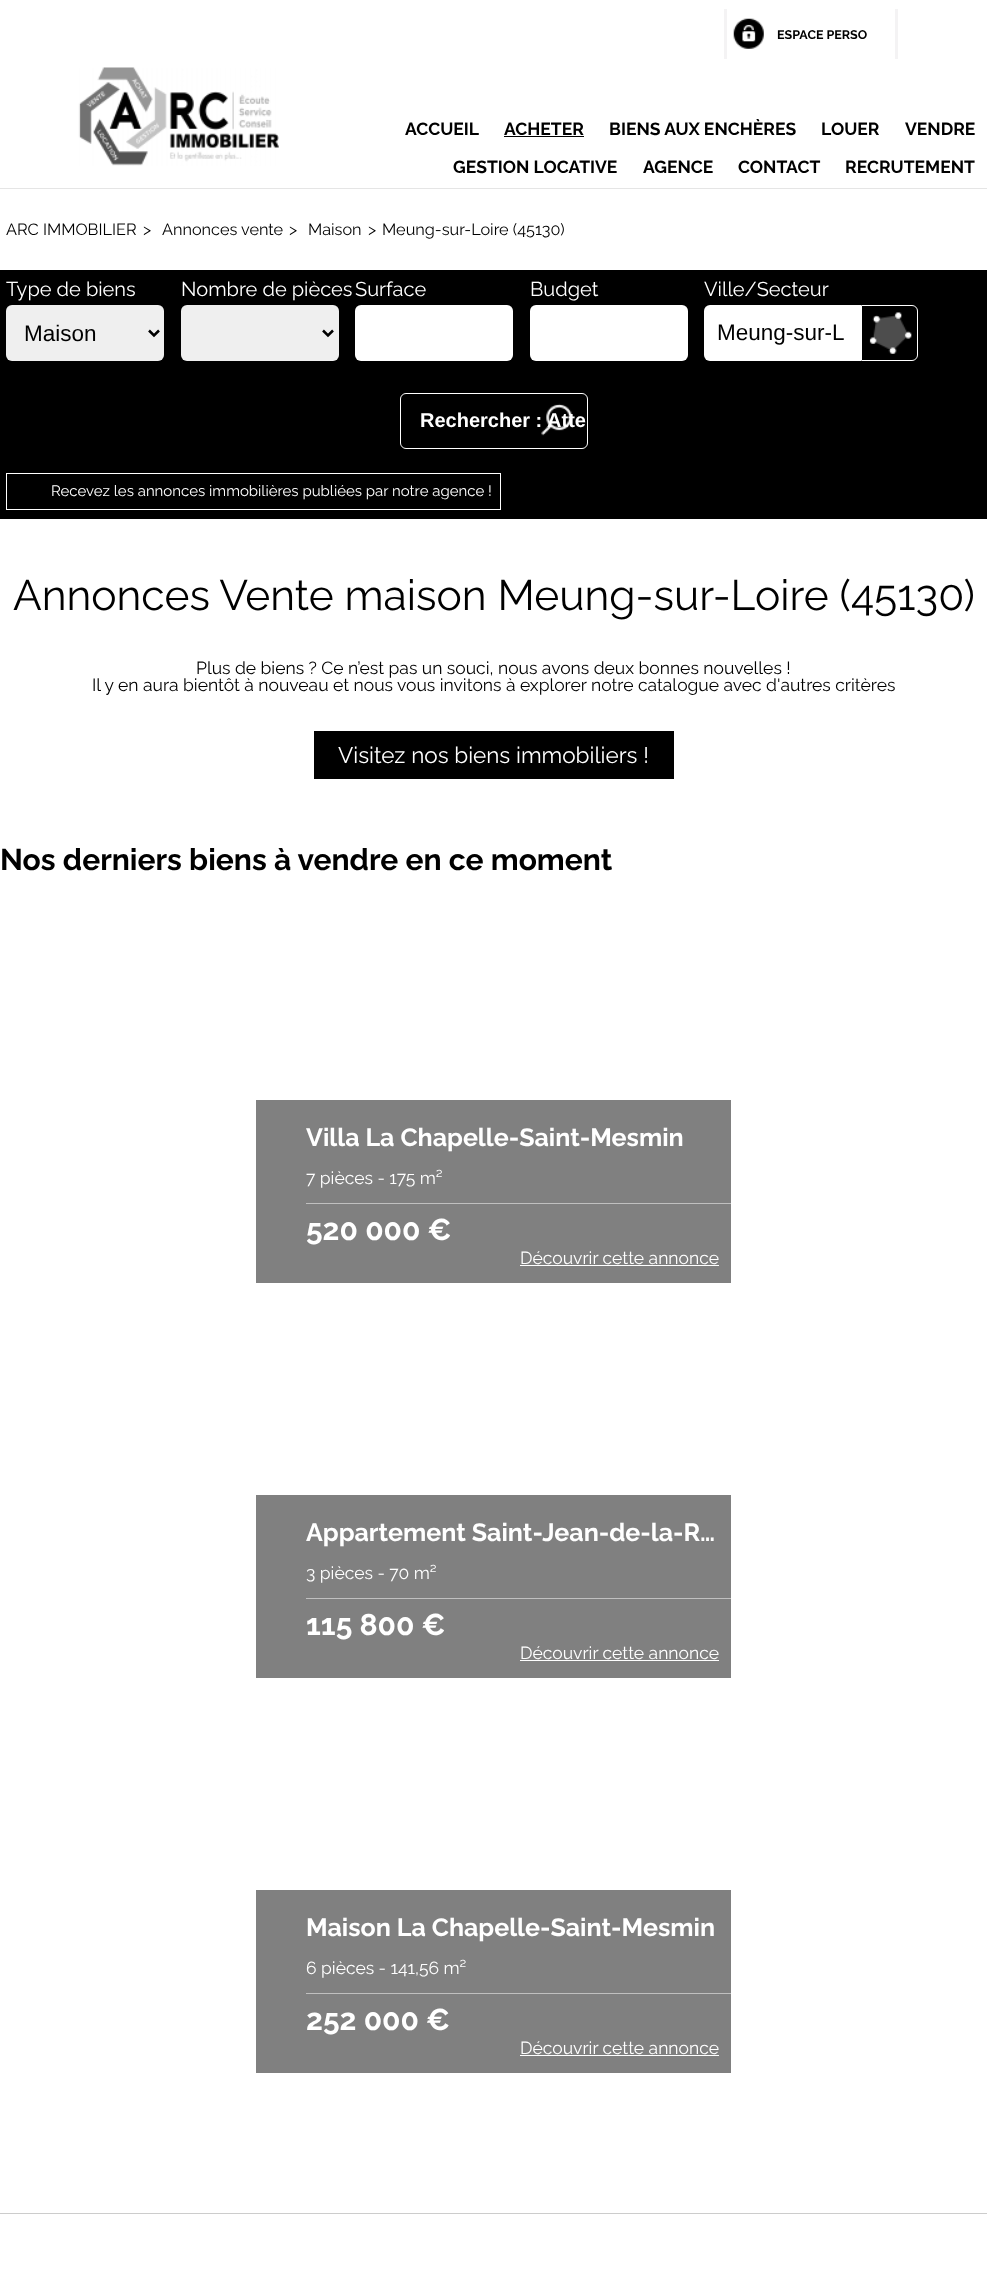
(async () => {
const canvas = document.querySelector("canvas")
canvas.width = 987
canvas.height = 2276
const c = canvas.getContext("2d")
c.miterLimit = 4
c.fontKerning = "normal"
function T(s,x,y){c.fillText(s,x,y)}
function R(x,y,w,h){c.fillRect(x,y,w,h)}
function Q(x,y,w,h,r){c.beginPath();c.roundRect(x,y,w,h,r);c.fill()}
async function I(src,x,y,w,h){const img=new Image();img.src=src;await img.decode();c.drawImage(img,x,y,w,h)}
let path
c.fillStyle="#fff"
R(0,0,987,2276)
c.fillStyle="#f4f3f4"
R(895,9,3,50)
R(724,9,3,50)
await I("1.png",733,18,31,31)
c.font="bold 12.5px Raleway"
c.fillStyle="#000"
T("ESPACE PERSO",777,39)
await I("2.png",78,67,201,99)
c.font="bold 17.5px Raleway"
T("ACCUEIL",405,135)
T("ACHETER",504,135)
R(504,136,80,1)
T("BIENS AUX ENCHÈRES",609,135)
T("LOUER",821,135)
T("VENDRE",905,135)
T("GESTION LOCATIVE",453,173)
T("AGENCE",643,173)
T("CONTACT",738,173)
T("RECRUTEMENT",845,173)
c.fillStyle="#e5e5e5"
R(0,188,987,1)
c.font="16.25px Raleway"
c.fillStyle="#000"
T("ARC IMMOBILIER",6,235)
T(">",143,235)
T("Annonces vente",162,235)
T(">",289,235)
T("Maison",308,235)
T(">",368,235)
T("Meung-sur-Loire (45130)",382,235)
R(0,270,987,249)
c.font="20px Raleway"
c.fillStyle="#fff"
T("Type de biens",6,296)
c.fillStyle="#efefef"
Q(6,305,158,56,6)
path = new Path2D("M149 330.5l5 5l5-5")
c.strokeStyle="#000"
c.lineWidth=2.5
c.stroke(path)
c.font="22.5px Liberation Sans"
c.fillStyle="#000"
T("Maison",24,341)
c.font="20px Raleway"
c.fillStyle="#fff"
T("Nombre de pièces",181,296)
c.fillStyle="#efefef"
Q(181,305,158,56,6)
path = new Path2D("M323 330.5l5 5l5-5")
c.stroke(path)
c.fillStyle="#fff"
T("Surface",355,296)
Q(355,305,158,56,6)
T("Budget",530,296)
Q(530,305,158,56,6)
T("Ville/Secteur",704,296)
c.beginPath()
c.roundRect(704,305,157,56,[6,0,0,6])
c.fill()
c.font="22.5px Liberation Sans"
c.fillStyle="#000"
T("Meung-sur-L",717,340)
await I("3.png",869,312,43,42)
c.beginPath()
c.roundRect(861.5,305.5,56,55,[0,5.5,5.5,0])
c.strokeStyle="#fff"
c.lineWidth=1
c.stroke()
await I("4.png",541,403,32,33)
c.beginPath()
c.roundRect(400.5,393.5,187,55,5.5)
c.stroke()
c.font="bold 20px Liberation Sans"
c.fillStyle="#fff"
T("Rechercher : Atte",420,427)
c.strokeRect(6.5,473.5,494,36)
c.font="15px Raleway"
T("Recevez les annonces immobilières publiées par notre agence !",51,496)
c.font="42.5px Raleway"
c.fillStyle="#000"
T("Annonces Vente maison Meung-sur-Loire (45130)",13,610)
c.font="17.5px Raleway"
T("Plus de biens ? Ce n’est pas un souci, nous avons deux bonnes nouvelles !",196,674)
T("Il y en aura bientôt à nouveau et nous vous invitons à explorer notre catalogue avec d'autres critères",92,691)
R(314,731,360,48)
c.font="22.5px Raleway"
c.fillStyle="#fff"
T("Visitez nos biens immobiliers !",338,763)
c.font="bold 30px Raleway"
c.fillStyle="#000"
T("Nos derniers biens à vendre en ce moment",0,870)
c.fillStyle="#808080"
R(256,1100,475,183)
c.fillStyle="#c0c0c0"
R(306,1203,425,1)
c.font="bold 25px Raleway"
c.fillStyle="#fff"
T("Villa La Chapelle-Saint-Mesmin",306,1146)
c.font="17.5px Raleway"
T("7 pièces - 175 m²",306,1184)
c.font="bold 30px Raleway"
T("520 000 €",306,1240)
c.font="17.5px Raleway"
T("Découvrir cette annonce",520,1264)
R(520,1265,199,1)
c.fillStyle="#808080"
R(256,1495,475,183)
c.fillStyle="#c0c0c0"
R(306,1598,425,1)
c.font="bold 25px Raleway"
c.fillStyle="#fff"
T("Appartement Saint-Jean-de-la-R…",306,1541)
c.font="17.5px Raleway"
T("3 pièces - 70 m²",306,1579)
c.font="bold 30px Raleway"
T("115 800 €",306,1635)
c.font="17.5px Raleway"
T("Découvrir cette annonce",520,1659)
R(520,1660,199,1)
c.fillStyle="#808080"
R(256,1890,475,183)
c.fillStyle="#c0c0c0"
R(306,1993,425,1)
c.font="bold 25px Raleway"
c.fillStyle="#fff"
T("Maison La Chapelle-Saint-Mesmin",306,1936)
c.font="17.5px Raleway"
T("6 pièces - 141,56 m²",306,1974)
c.font="bold 30px Raleway"
T("252 000 €",306,2030)
c.font="17.5px Raleway"
T("Découvrir cette annonce",520,2054)
R(520,2055,199,1)
c.fillStyle="#ccc"
R(0,2213,987,1)
})()
